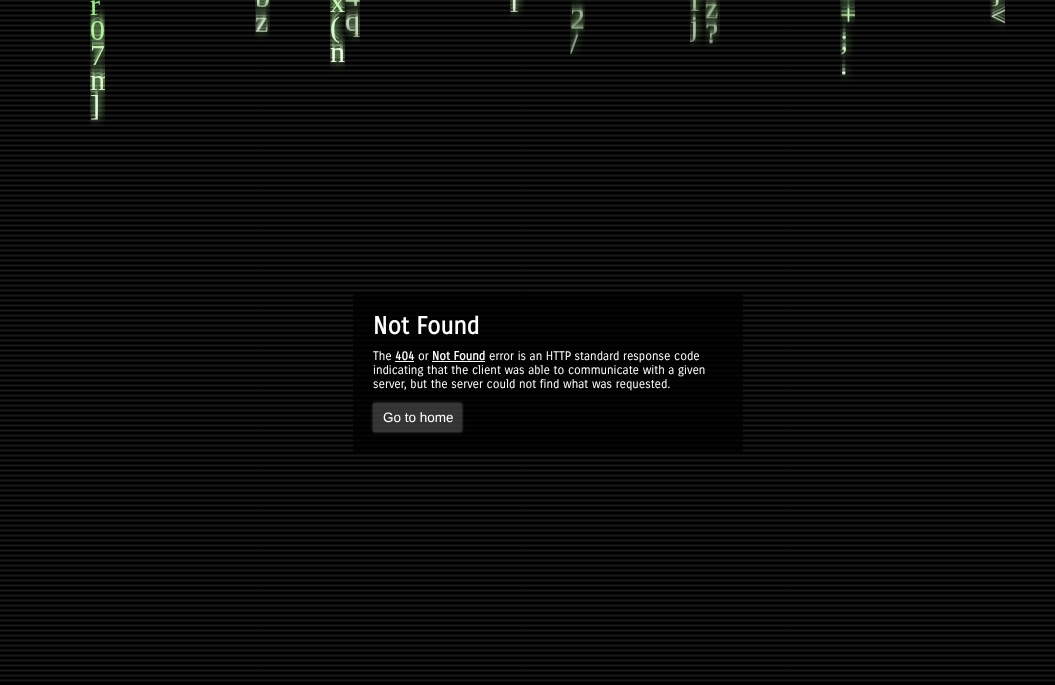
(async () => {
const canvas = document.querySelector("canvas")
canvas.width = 1055
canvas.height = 685
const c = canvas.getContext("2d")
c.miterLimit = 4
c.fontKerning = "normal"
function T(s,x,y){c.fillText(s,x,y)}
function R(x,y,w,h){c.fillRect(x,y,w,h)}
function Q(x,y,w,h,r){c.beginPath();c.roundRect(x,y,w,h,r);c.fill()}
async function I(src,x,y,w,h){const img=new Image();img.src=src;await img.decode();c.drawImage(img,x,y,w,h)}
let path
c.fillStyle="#000"
R(0,0,1055,685)
await I("2.png",90,0,915,127)
await I("1.png",0,0,1055,682)
c.fillStyle="#000000b3"
R(353,294,390,158)
c.font="bold 24px Carrois Gothic"
c.fillStyle="#fff"
T("Not Found",373,334)
c.font="12px Carrois Gothic"
T("The",373,360)
c.font="bold 12px Carrois Gothic"
T("404",395,360)
R(395,361,19,1)
c.font="12px Carrois Gothic"
T("or",418,360)
c.font="bold 12px Carrois Gothic"
T("Not Found",432,360)
R(432,361,53,1)
c.font="12px Carrois Gothic"
T("error is an HTTP standard response code",489,360)
T("indicating that the client was able to communicate with a given",373,374)
T("server, but the server could not find what was requested.",373,388)
c.save()
path = new Path2D("M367 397h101v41h-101zm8 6h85c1 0 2 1 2 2v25c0 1-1 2-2 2h-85c-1 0-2-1-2-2v-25c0-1 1-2 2-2z")
c.clip(path,"evenodd")
c.fillStyle="#ffffff4d"
c.filter="blur(1.5px)"
c.beginPath()
c.roundRect(373,403,89,29,2)
c.fill()
c.filter="none"
c.restore()
c.fillStyle="#ffffff33"
Q(373,403,89,29,2)
c.font="13.5px Liberation Sans"
c.fillStyle="#fff"
T("Go to home",383,422)
})()
